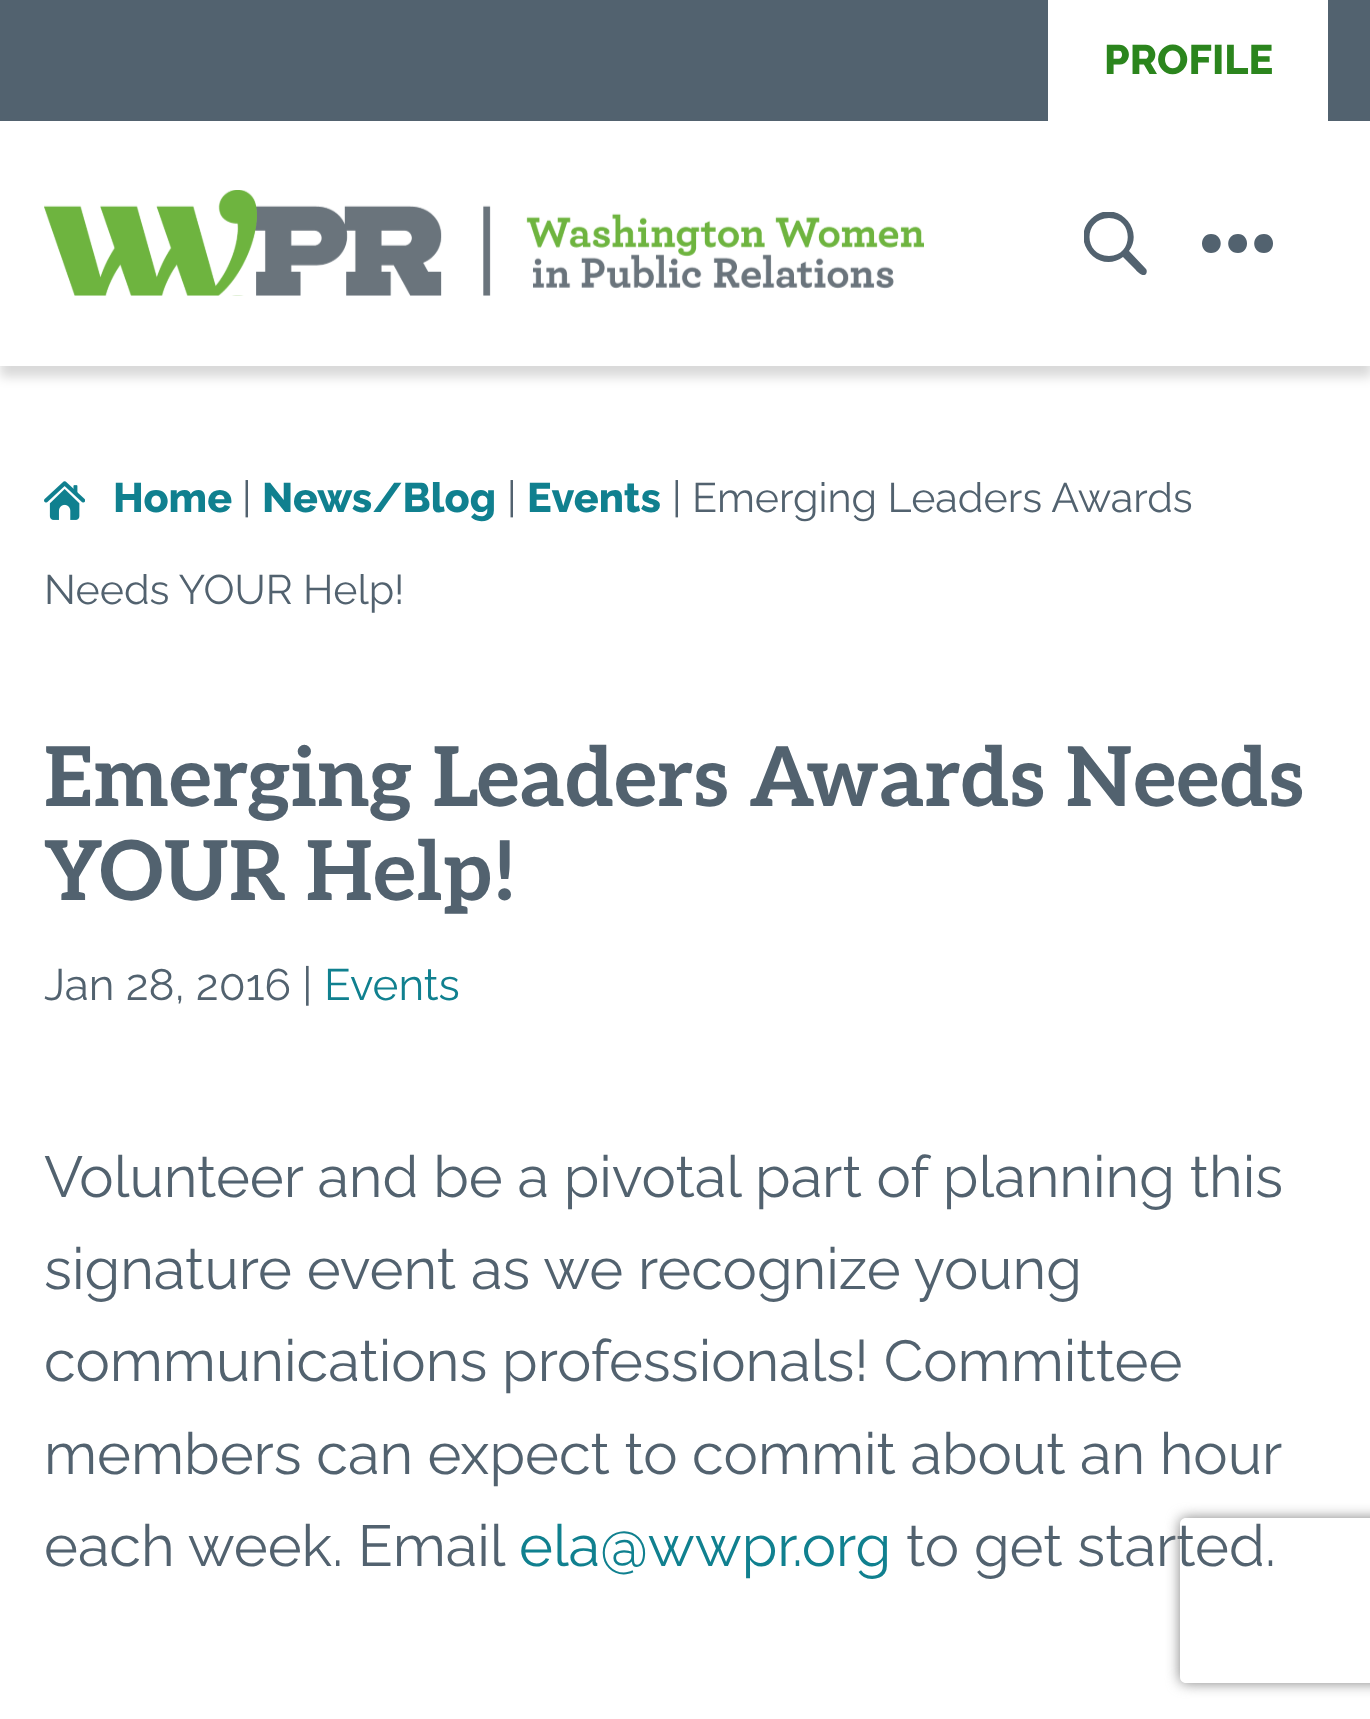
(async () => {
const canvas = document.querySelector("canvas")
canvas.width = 1370
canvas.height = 1719
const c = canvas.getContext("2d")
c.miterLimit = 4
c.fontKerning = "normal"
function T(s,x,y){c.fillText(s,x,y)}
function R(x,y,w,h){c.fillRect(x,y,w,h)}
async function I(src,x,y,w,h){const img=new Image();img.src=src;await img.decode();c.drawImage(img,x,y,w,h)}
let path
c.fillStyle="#fff"
R(0,0,1370,1719)
c.fillStyle="#00000026"
c.filter="blur(5.5px)"
c.beginPath()
c.rect(0,11,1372,366)
c.fill()
c.filter="none"
c.fillStyle="#fff"
R(0,121,1370,245)
c.fillStyle="#52626f"
R(0,0,1370,121)
c.fillStyle="#fff"
R(1048,0,280,121)
c.font="800 41.25px Raleway"
c.fillStyle="#2b851d"
T("PROFILE",1104,74)
await I("1.png",44,190,880,106)
c.save()
c.beginPath()
c.rect(1084,212,63,63)
c.clip()
c.fillStyle="#52626f"
path = new Path2D("M1123 257c-24 18-54-16-32-38c22-22 55 8 38 32l17 18c1 1 1 3 0 5c-4 4-10-4-12-6zm-14-1c25 0 25-38 0-38c-26 0-26 38 0 38z")
c.fill(path)
c.restore()
c.fillStyle="#52626f"
path = new Path2D("M1211 253c-12 0-12-19 0-19c13 0 13 19 0 19zm27 0c-13 0-13-19 0-19c12 0 12 19 0 19zm26 0c-13 0-13-19 0-19c12 0 12 19 0 19z")
c.fill(path,"evenodd")
await I("2.png",44,481,41,39)
c.fillStyle="#10808f"
T("Home",113,512)
c.font="41.25px Raleway"
c.fillStyle="#52626f"
T("|",242,512)
c.font="800 41.25px Raleway"
c.fillStyle="#10808f"
T("News/Blog",262,512)
c.font="41.25px Raleway"
c.fillStyle="#52626f"
T("|",507,512)
c.font="800 41.25px Raleway"
c.fillStyle="#10808f"
T("Events",527,512)
c.font="41.25px Raleway"
c.fillStyle="#52626f"
T("| Emerging Leaders Awards",672,512)
T("Needs YOUR Help!",44,604)
c.font="bold 82.5px Aleo"
T("Emerging Leaders Awards Needs",44,806)
T("YOUR Help!",44,900)
c.font="44px Raleway"
T("Jan 28, 2016 |",44,1000)
c.fillStyle="#10808f"
T("Events",324,1000)
c.font="57.75px Raleway"
c.fillStyle="#52626f"
T("Volunteer and be a pivotal part of planning this",44,1197)
T("signature event as we recognize young",44,1289)
T("communications professionals! Committee",44,1381)
c.wordSpacing="-0.25px"
T("members can expect to commit about an hour",44,1474)
c.wordSpacing="0px"
T("each week. Email",44,1566)
c.fillStyle="#10808f"
T("ela@wwpr.org",519,1566)
c.fillStyle="#52626f"
T("to get started.",906,1566)
c.save()
path = new Path2D("M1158 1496h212v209h-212zm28 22h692c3.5 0 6 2.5 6 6v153c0 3.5-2.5 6-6 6h-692c-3.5 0-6-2.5-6-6v-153c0-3.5 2.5-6 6-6z")
c.clip(path,"evenodd")
c.fillStyle="#808080"
c.filter="blur(7px)"
c.beginPath()
c.roundRect(1180,1518,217,165,6)
c.fill()
c.filter="none"
c.restore()
})()
